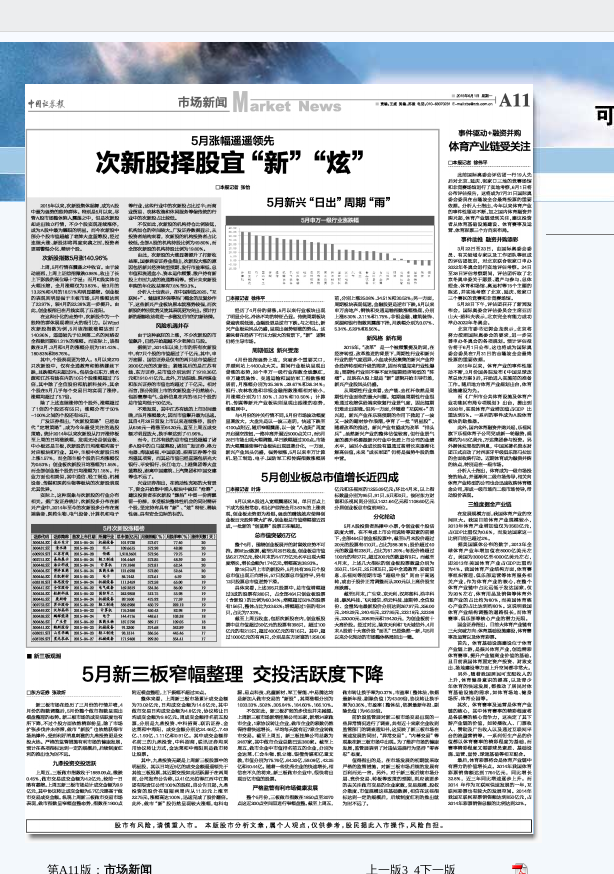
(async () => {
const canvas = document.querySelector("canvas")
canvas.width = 614
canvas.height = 874
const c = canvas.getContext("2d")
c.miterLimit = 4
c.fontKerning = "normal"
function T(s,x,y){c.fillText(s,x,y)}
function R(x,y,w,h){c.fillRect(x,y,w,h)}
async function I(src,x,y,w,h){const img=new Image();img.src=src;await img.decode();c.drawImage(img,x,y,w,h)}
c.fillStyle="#f7faff"
R(0,0,614,874)
c.fillStyle="#ecedee"
R(0,0,614,31)
c.fillStyle="#d8d8d8"
R(0,31,614,1)
c.fillStyle="#f3f8fc"
R(0,202,614,672)
await I("1.png",546,42,68,160)
c.fillStyle="#787878"
R(546,234,68,1)
await I("2.png",0,42,25,160)
await I("3.png",380,42,153,42)
await I("4.png",25,42,355,42)
await I("5.png",533,202,9,632)
await I("6.png",533,42,13,160)
c.fillStyle="#fff"
R(25,84,508,750)
await I("7.png",25,91,507,742)
await I("8.png",25,834,508,9)
await I("9.png",25,834,136,8)
await I("10.png",533,834,9,9)
c.font="500 12px WenQuanYi Zen Hei"
c.fillStyle="#000"
T("第",47,874)
c.font="12px Liberation Serif"
T("A11",59,874)
c.font="500 12px WenQuanYi Zen Hei"
T("版：",80,874)
c.font="bold 12px WenQuanYi Zen Hei"
T("市场新闻",104,874)
c.font="500 12px WenQuanYi Zen Hei"
T("上一版",366,874)
c.font="12px Liberation Serif"
T("3",402,874)
T("4",414,874)
c.font="500 12px WenQuanYi Zen Hei"
T("下一版",420,874)
await I("11.png",512,863,16,11)
})()
